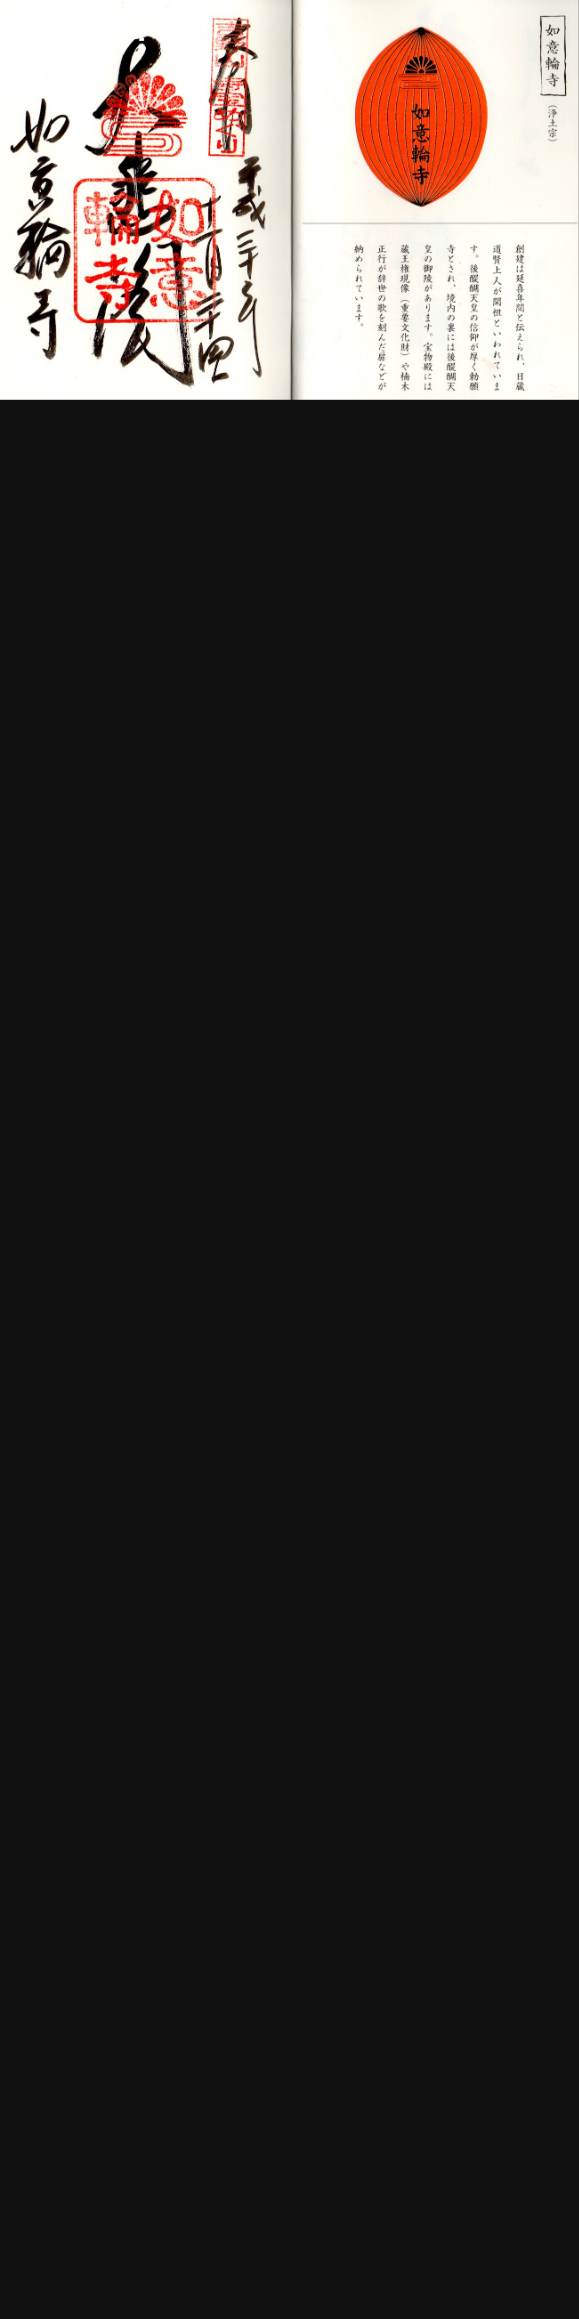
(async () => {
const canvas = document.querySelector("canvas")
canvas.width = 579
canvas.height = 2319
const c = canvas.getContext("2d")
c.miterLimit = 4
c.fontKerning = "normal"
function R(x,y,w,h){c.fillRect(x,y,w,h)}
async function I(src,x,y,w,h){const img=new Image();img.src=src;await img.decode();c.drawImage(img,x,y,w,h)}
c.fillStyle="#111"
R(0,0,579,2319)
await I("1.png",0,0,579,400)
})()
